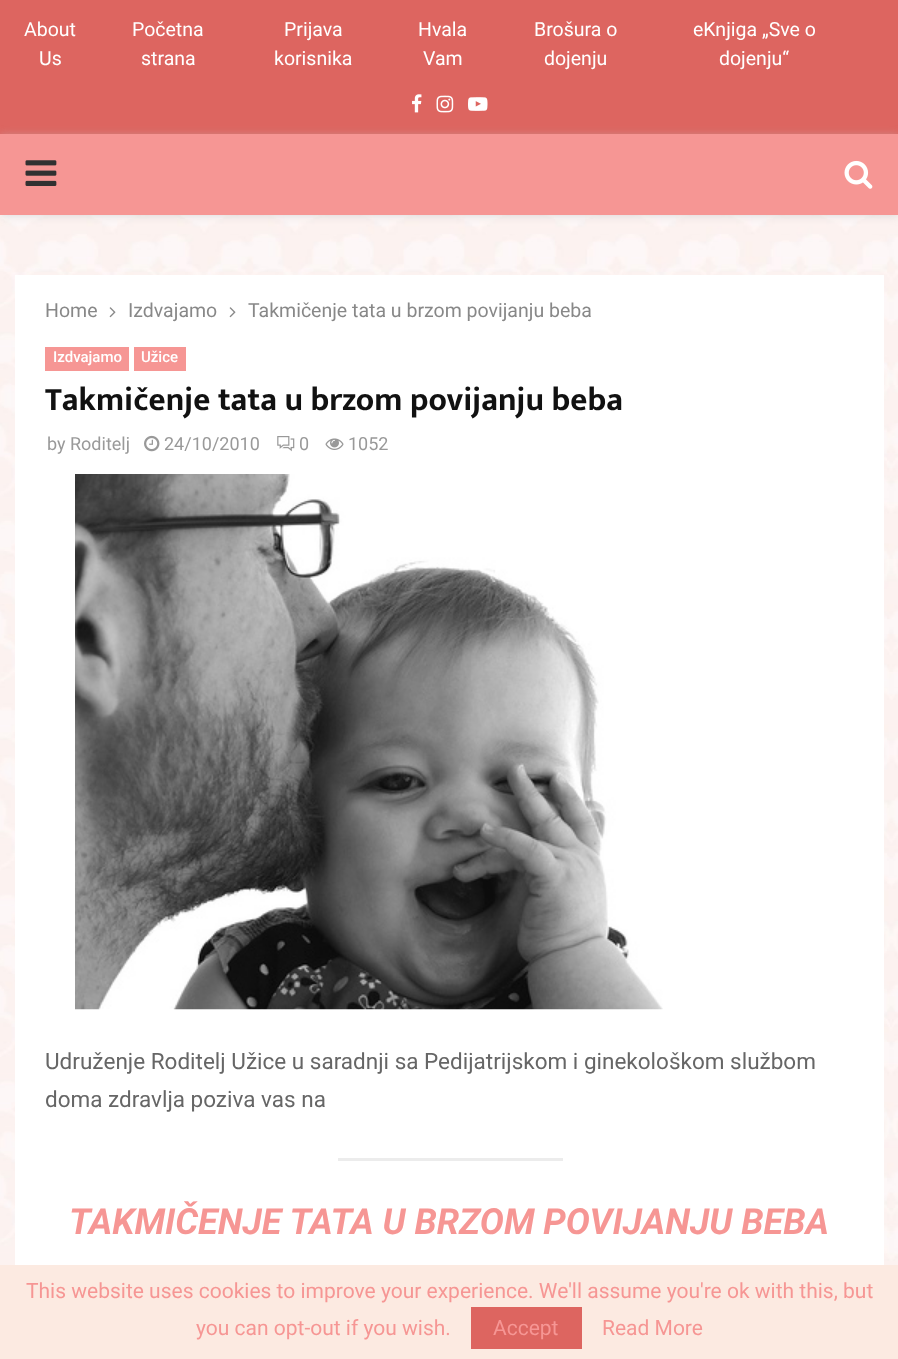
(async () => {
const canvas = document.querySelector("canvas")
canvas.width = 898
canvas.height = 1359
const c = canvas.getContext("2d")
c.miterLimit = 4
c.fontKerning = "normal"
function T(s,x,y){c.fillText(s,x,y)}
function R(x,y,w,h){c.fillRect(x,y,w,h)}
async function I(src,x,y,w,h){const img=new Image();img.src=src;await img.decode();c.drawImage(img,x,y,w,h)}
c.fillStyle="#fff"
R(0,0,898,1359)
await I("1.png",0,215,898,1050)
c.fillStyle="#dd6560"
R(0,0,898,134)
c.font="19.5px Roboto"
c.fillStyle="#fff"
T("About",24,36)
T("Us",39,65)
T("Početna",132,36)
T("strana",141,65)
T("Prijava",284,36)
T("korisnika",274,65)
T("Hvala",418,36)
T("Vam",423,65)
T("Brošura o",534,36)
T("dojenju",544,65)
T("eKnjiga „Sve o",693,36)
T("dojenju“",719,65)
await I("2.png",412,94,10,19)
await I("3.png",436,95,18,18)
await I("4.png",468,97,20,14)
c.fillStyle="#bebebe75"
c.filter="blur(4px)"
c.beginPath()
c.rect(0,135,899,81)
c.fill()
c.filter="none"
c.fillStyle="#f69694"
R(0,134,898,81)
await I("5.png",25,160,32,26)
await I("6.png",844,160,29,29)
c.fillStyle="#fff"
R(15,275,869,990)
c.fillStyle="#888"
T("Home",45,317)
await I("7.png",109,307,7,11)
T("Izdvajamo",128,317)
await I("7.png",229,307,7,11)
T("Takmičenje tata u brzom povijanju beba",248,317)
c.fillStyle="#f69694"
R(45,347,84,24)
c.font="500 15px Roboto"
c.fillStyle="#fff"
T("Izdvajamo",53,362)
c.fillStyle="#f69694"
R(134,347,52,24)
c.fillStyle="#fff"
T("Užice",141,362)
c.font="bold 33px Mukta Vaani"
c.fillStyle="#111"
T("Takmičenje tata u brzom povijanju beba",45,410)
c.font="18px Roboto"
c.fillStyle="#999"
T("by Roditelj",47,450)
await I("8.png",144,435,16,17)
T("24/10/2010",164,450)
await I("9.png",277,436,18,16)
T("0",299,450)
await I("10.png",325,438,19,12)
T("1052",348,450)
await I("11.png",75,474,588,536)
c.font="22.5px Roboto"
c.fillStyle="#666"
T("Udruženje Roditelj Užice u saradnji sa Pedijatrijskom i ginekološkom službom",45,1069)
T("doma zdravlja poziva vas na",45,1107)
c.fillStyle="#ececec"
R(338,1158,225,3)
c.font="italic bold 36px Roboto"
c.fillStyle="#f69694"
T("TAKMIČENJE TATA U BRZOM POVIJANJU BEBA",69,1234)
c.fillStyle="#fceae1"
R(0,1265,898,94)
c.font="21px Roboto"
c.fillStyle="#f69694"
T("This website uses cookies to improve your experience. We'll assume you're ok with this, but",26,1298)
T("you can opt-out if you wish.",196,1335)
c.fillStyle="#dd6560"
R(471,1307,111,42)
c.fillStyle="#f69694"
T("Accept",493,1335)
T("Read More",602,1335)
})()
